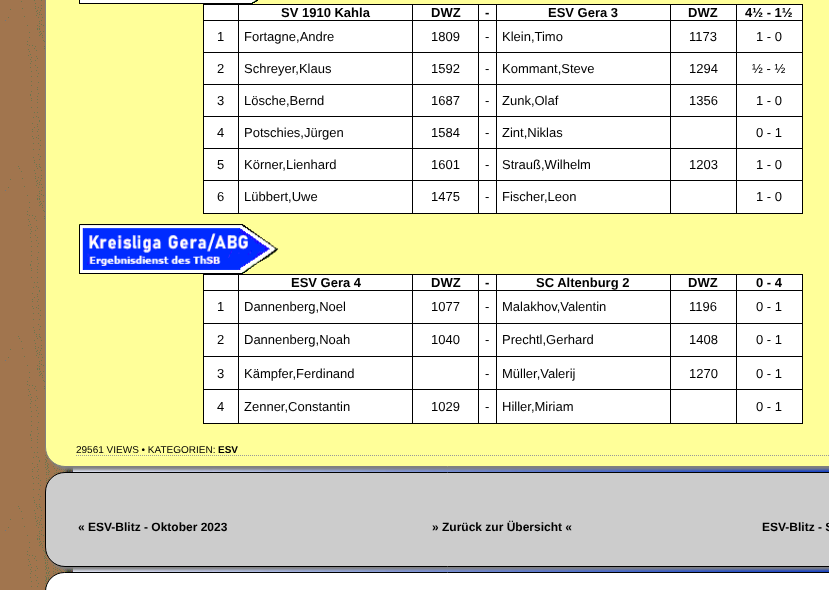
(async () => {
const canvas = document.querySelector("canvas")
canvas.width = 829
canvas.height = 590
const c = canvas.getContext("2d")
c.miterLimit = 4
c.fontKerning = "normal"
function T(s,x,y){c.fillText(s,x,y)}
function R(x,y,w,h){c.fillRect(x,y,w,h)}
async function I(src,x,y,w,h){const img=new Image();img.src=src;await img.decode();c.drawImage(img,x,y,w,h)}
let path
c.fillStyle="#fff"
R(0,0,829,590)
await I("1.png",73,467,756,105)
await I("2.png",0,0,73,590)
c.fillStyle="#808080"
c.filter="blur(1.5px)"
c.beginPath()
c.roundRect(48,-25,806,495,20)
c.fill()
c.filter="none"
c.fillStyle="#ff9"
c.beginPath()
c.roundRect(45.5,-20.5,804,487,19.5)
c.fill()
c.strokeStyle="#808080"
c.stroke()
await I("3.png",79,0,179,4)
c.fillStyle="#fff"
R(204,5,598,208)
c.fillStyle="#000"
R(203,4,600,1)
R(802,4,1,210)
R(203,213,600,1)
R(203,4,1,210)
R(736,20,67,1)
R(736,52,67,1)
R(736,84,67,1)
R(736,116,67,1)
R(736,148,67,1)
R(736,180,67,1)
R(736,180,1,34)
R(670,180,67,1)
R(736,148,1,33)
R(670,148,67,1)
R(736,116,1,33)
R(670,116,67,1)
R(736,84,1,33)
R(670,84,67,1)
R(736,52,1,33)
R(670,52,67,1)
R(736,20,1,33)
R(670,20,67,1)
R(670,180,1,34)
R(496,180,175,1)
R(670,148,1,33)
R(496,148,175,1)
R(670,116,1,33)
R(496,116,175,1)
R(670,84,1,33)
R(496,84,175,1)
R(670,52,1,33)
R(496,52,175,1)
R(670,20,1,33)
R(496,20,175,1)
R(496,180,1,34)
R(478,180,19,1)
R(496,148,1,33)
R(478,148,19,1)
R(496,116,1,33)
R(478,116,19,1)
R(496,84,1,33)
R(478,84,19,1)
R(496,52,1,33)
R(478,52,19,1)
R(496,20,1,33)
R(478,20,19,1)
R(478,180,1,34)
R(412,180,67,1)
R(478,148,1,33)
R(412,148,67,1)
R(478,116,1,33)
R(412,116,67,1)
R(478,84,1,33)
R(412,84,67,1)
R(478,52,1,33)
R(412,52,67,1)
R(478,20,1,33)
R(412,20,67,1)
R(412,180,1,34)
R(238,180,175,1)
R(412,148,1,33)
R(238,148,175,1)
R(412,116,1,33)
R(238,116,175,1)
R(412,84,1,33)
R(238,84,175,1)
R(412,52,1,33)
R(238,52,175,1)
R(412,20,1,33)
R(238,20,175,1)
R(238,180,1,34)
R(203,180,36,1)
R(238,148,1,33)
R(203,148,36,1)
R(238,116,1,33)
R(203,116,36,1)
R(238,84,1,33)
R(203,84,36,1)
R(238,52,1,33)
R(203,52,36,1)
R(238,20,1,33)
R(203,20,36,1)
R(238,4,1,17)
c.font="bold 13px Liberation Sans"
T("SV 1910 Kahla",281,17)
R(412,4,1,17)
T("DWZ",431,17)
R(478,4,1,17)
T("-",485,17)
R(496,4,1,17)
T("ESV Gera 3",548,17)
R(670,4,1,17)
T("DWZ",688,17)
R(736,4,1,17)
T("4½ - 1½",745,17)
c.font="13px Liberation Sans"
T("1",217,41)
T("Fortagne,Andre",244,41)
T("1809",431,41)
T("-",485,41)
T("Klein,Timo",502,41)
T("1173",689,41)
T("1 - 0",756,41)
T("2",217,73)
T("Schreyer,Klaus",244,73)
T("1592",431,73)
T("-",485,73)
T("Kommant,Steve",502,73)
T("1294",689,73)
T("½ - ½",752,73)
T("3",217,105)
T("Lösche,Bernd",244,105)
T("1687",431,105)
T("-",485,105)
T("Zunk,Olaf",502,105)
T("1356",689,105)
T("1 - 0",756,105)
T("4",217,137)
T("Potschies,Jürgen",244,137)
T("1584",431,137)
T("-",485,137)
T("Zint,Niklas",502,137)
T("0 - 1",756,137)
T("5",217,169)
T("Körner,Lienhard",244,169)
T("1601",431,169)
T("-",485,169)
T("Strauß,Wilhelm",502,169)
T("1203",689,169)
T("1 - 0",756,169)
T("6",217,201)
T("Lübbert,Uwe",244,201)
T("1475",431,201)
T("-",485,201)
T("Fischer,Leon",502,201)
T("1 - 0",756,201)
await I("4.png",79,224,200,50)
c.fillStyle="#fff"
R(204,275,598,148)
c.fillStyle="#000"
R(203,274,600,1)
R(802,274,1,150)
R(203,423,600,1)
R(203,274,1,150)
R(736,290,67,1)
R(736,323,67,1)
R(736,356,67,1)
R(736,389,67,1)
R(736,389,1,35)
R(670,389,67,1)
R(736,356,1,34)
R(670,356,67,1)
R(736,323,1,34)
R(670,323,67,1)
R(736,290,1,34)
R(670,290,67,1)
R(670,389,1,35)
R(496,389,175,1)
R(670,356,1,34)
R(496,356,175,1)
R(670,323,1,34)
R(496,323,175,1)
R(670,290,1,34)
R(496,290,175,1)
R(496,389,1,35)
R(478,389,19,1)
R(496,356,1,34)
R(478,356,19,1)
R(496,323,1,34)
R(478,323,19,1)
R(496,290,1,34)
R(478,290,19,1)
R(478,389,1,35)
R(412,389,67,1)
R(478,356,1,34)
R(412,356,67,1)
R(478,323,1,34)
R(412,323,67,1)
R(478,290,1,34)
R(412,290,67,1)
R(412,389,1,35)
R(238,389,175,1)
R(412,356,1,34)
R(238,356,175,1)
R(412,323,1,34)
R(238,323,175,1)
R(412,290,1,34)
R(238,290,175,1)
R(238,389,1,35)
R(203,389,36,1)
R(238,356,1,34)
R(203,356,36,1)
R(238,323,1,34)
R(203,323,36,1)
R(238,290,1,34)
R(203,290,36,1)
R(238,274,1,17)
c.font="bold 13px Liberation Sans"
T("ESV Gera 4",291,287)
R(412,274,1,17)
T("DWZ",431,287)
R(478,274,1,17)
T("-",485,287)
R(496,274,1,17)
T("SC Altenburg 2",536,287)
R(670,274,1,17)
T("DWZ",688,287)
R(736,274,1,17)
T("0 - 4",756,287)
c.font="13px Liberation Sans"
T("1",217,311)
T("Dannenberg,Noel",244,311)
T("1077",431,311)
T("-",485,311)
T("Malakhov,Valentin",502,311)
T("1196",689,311)
T("0 - 1",756,311)
T("2",217,344)
T("Dannenberg,Noah",244,344)
T("1040",431,344)
T("-",485,344)
T("Prechtl,Gerhard",502,344)
T("1408",689,344)
T("0 - 1",756,344)
T("3",217,378)
T("Kämpfer,Ferdinand",244,378)
T("-",485,378)
T("Müller,Valerij",502,378)
T("1270",689,378)
T("0 - 1",756,378)
T("4",217,411)
T("Zenner,Constantin",244,411)
T("1029",431,411)
T("-",485,411)
T("Hiller,Miriam",502,411)
T("0 - 1",756,411)
path = new Path2D("M76 455.5h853")
c.strokeStyle="#999"
c.setLineDash([1,1])
c.stroke(path)
c.font="10px Liberation Sans"
T("29561 VIEWS • KATEGORIEN:",76,453)
c.font="bold 10px Liberation Sans"
T("ESV",218,453)
c.fillStyle="#808080"
c.filter="blur(1.5px)"
c.beginPath()
c.roundRect(48,475,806,95,20)
c.fill()
c.filter="none"
c.fillStyle="#ccc"
c.beginPath()
c.roundRect(45.5,472.5,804,94,19.5)
c.fill()
c.strokeStyle="#000"
c.setLineDash([])
c.stroke()
c.font="bold 12px Liberation Sans"
c.fillStyle="#000"
T("« ESV-Blitz - Oktober 2023",78,531)
T("» Zurück zur Übersicht «",432,531)
T("ESV-Blitz - S",762,531)
c.fillStyle="#fff"
c.beginPath()
c.roundRect(45.5,572.5,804,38,19.5)
c.fill()
c.stroke()
})()
